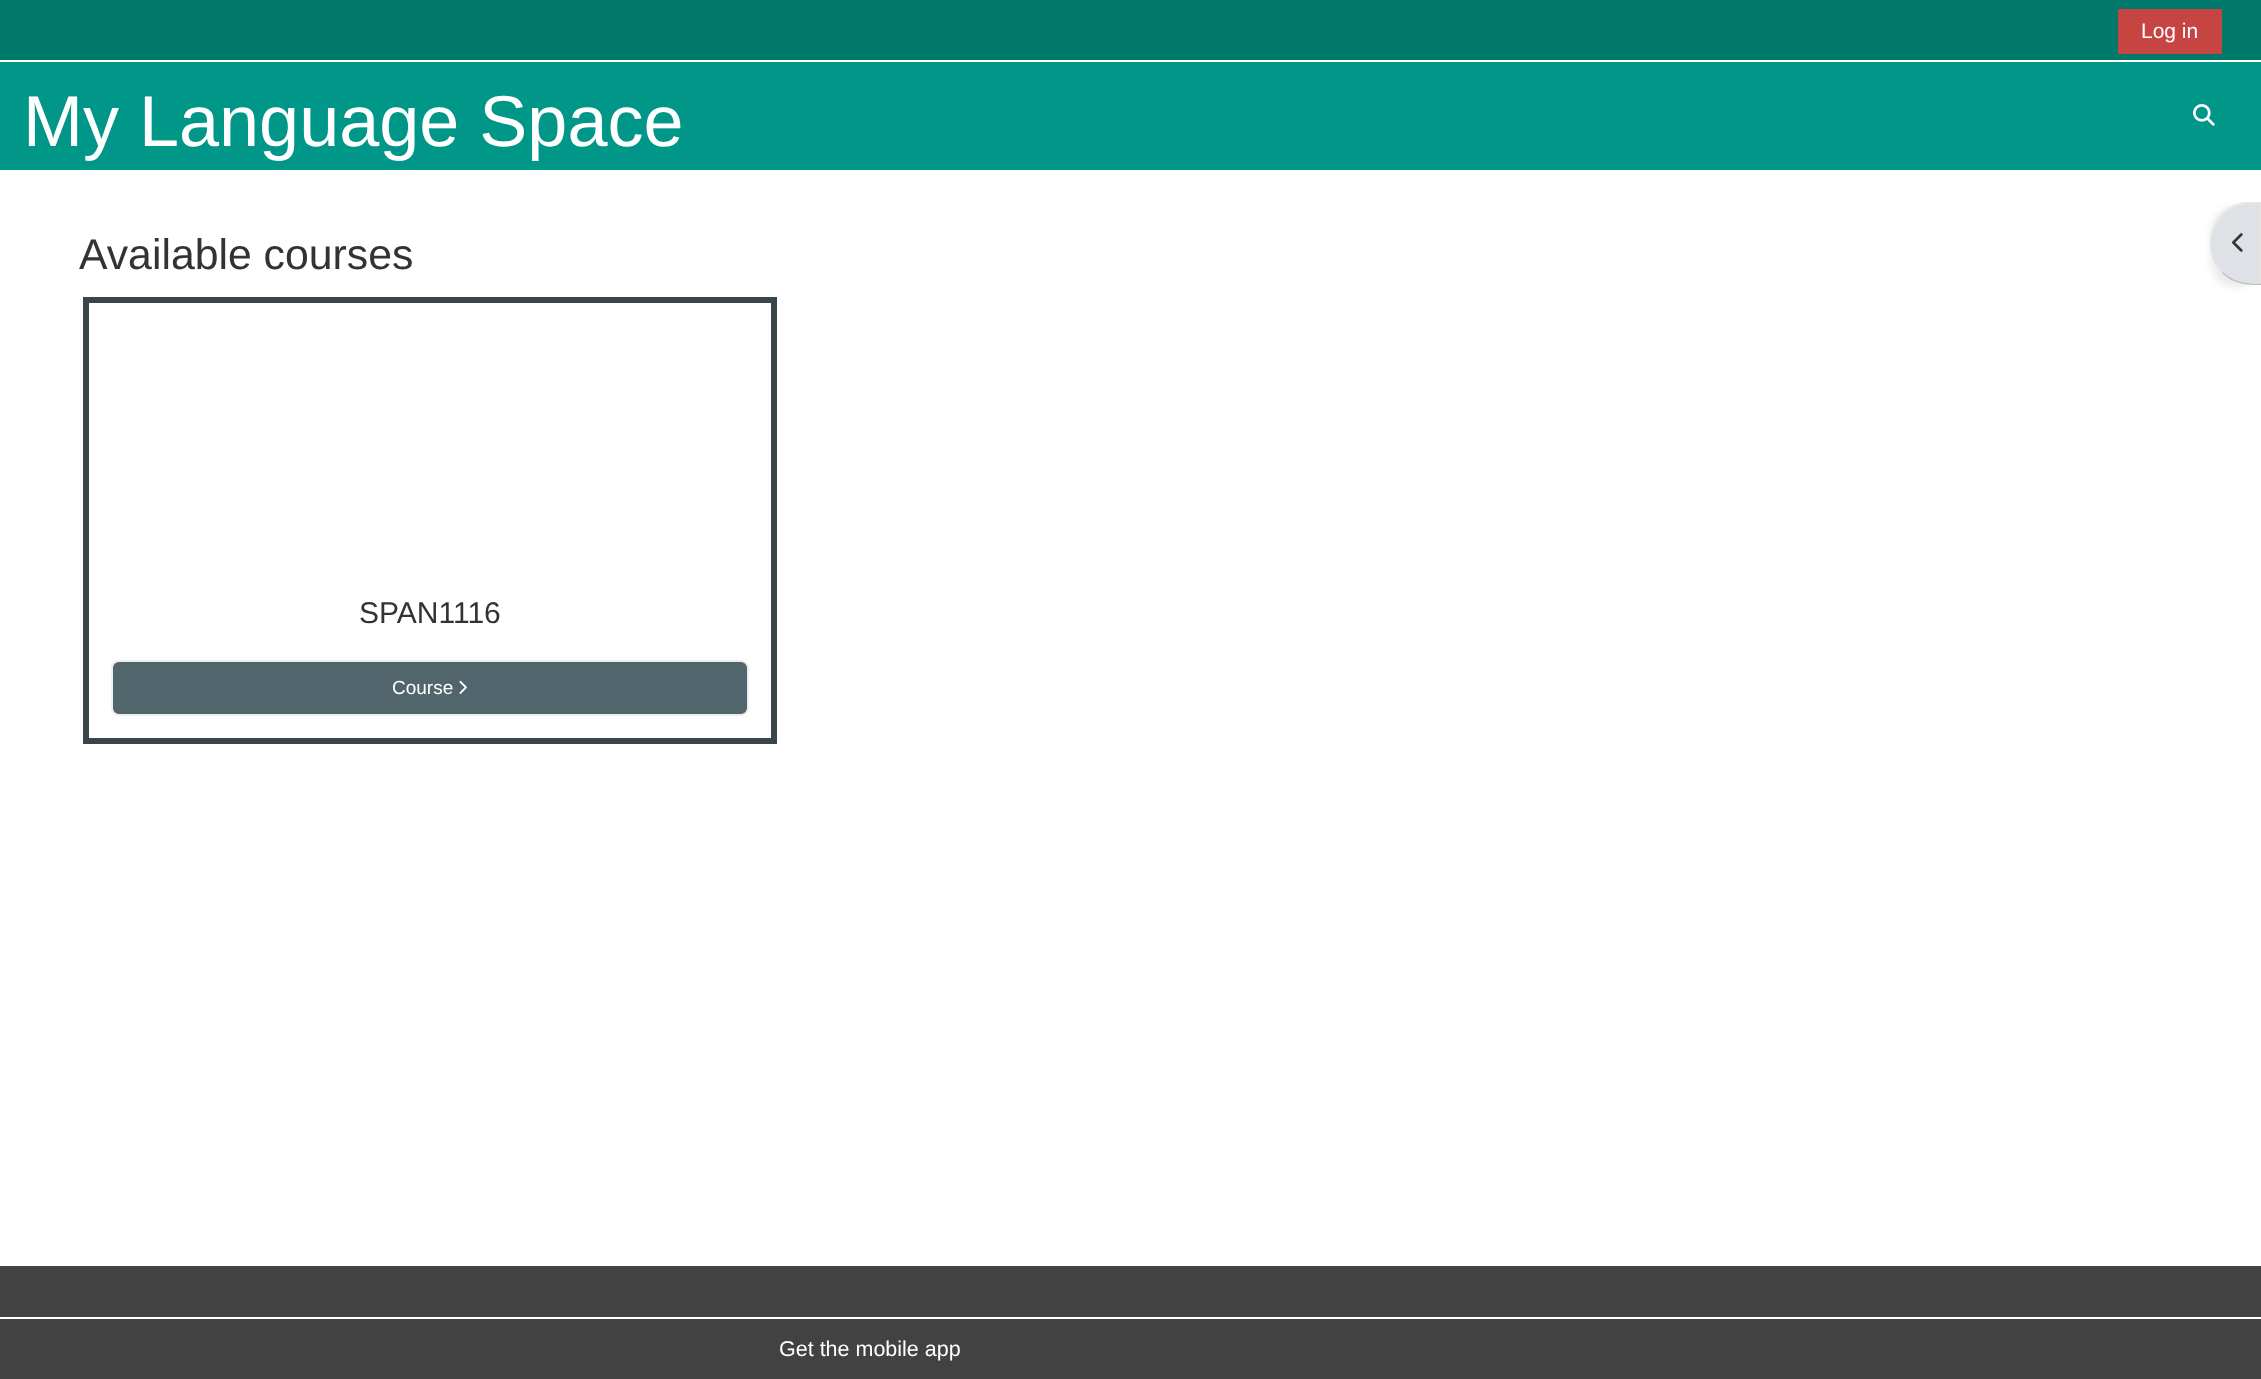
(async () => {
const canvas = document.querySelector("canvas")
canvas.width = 2261
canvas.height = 1379
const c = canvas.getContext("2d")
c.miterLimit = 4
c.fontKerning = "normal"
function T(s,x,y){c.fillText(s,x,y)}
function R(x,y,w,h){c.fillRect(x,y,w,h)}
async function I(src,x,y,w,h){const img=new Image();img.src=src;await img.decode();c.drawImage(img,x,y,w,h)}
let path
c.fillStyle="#fff"
R(0,0,2261,1379)
c.fillStyle="#009688"
R(0,62,2261,108)
c.fillStyle="#00796b"
R(0,0,2261,60)
c.fillStyle="#c64543"
R(2118,9,104,45)
c.font="21px Liberation Sans"
c.fillStyle="#fff"
T("Log in",2141,38)
c.font="72px Liberation Sans"
T("My Language Space",23,146)
await I("1.png",2193,104,22,22)
c.font="42.75px Liberation Sans"
c.fillStyle="#333"
T("Available courses",79,269)
c.strokeStyle="#3a454b"
c.lineWidth=6
c.strokeRect(86,300,688,441)
c.font="30px Liberation Sans"
T("SPAN1116",359,623)
c.fillStyle="#51666c"
c.beginPath()
c.roundRect(112,661,636,54,7)
c.fill()
c.strokeStyle="#eee"
c.lineWidth=2
c.stroke()
c.font="19px Liberation Sans"
c.fillStyle="#fff"
T("Course",392,694)
await I("2.png",459,680,8,14)
c.fillStyle="#00000012"
c.filter="blur(3px)"
c.beginPath()
c.roundRect(2210,206,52,82,41)
c.fill()
c.filter="none"
c.fillStyle="#dee2e6"
path = new Path2D("M2251 203h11v82h-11c-22.5 0-41-18.5-41-41c0-22.5 18.5-41 41-41z")
c.fill(path)
c.fillStyle="#e6e6e6"
path = new Path2D("M2251 204c-12 0-22 5-28 12l-2-2c6-6 14-10 23-12h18l-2 2z")
c.fill(path)
path = new Path2D("M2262 202l-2 2v79l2 2z")
c.fill(path)
c.fillStyle="#bfbfbf"
path = new Path2D("M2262 285l-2-2v1c-14 0-27-2-37-12l-1 1c11 11 25 12 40 12z")
c.fill(path)
c.fillStyle="#e6e6e6"
path = new Path2D("M2222 273c-17-16-15-43-1-59l2 2c-15 15-16 41 0 56z")
c.fill(path)
await I("3.png",2232,233,11,19)
c.fillStyle="#424242"
R(0,1266,2261,113)
c.fillStyle="#fff"
R(0,1317,2261,2)
c.font="21.5px Liberation Sans"
T("Get the mobile app",779,1356)
})()
